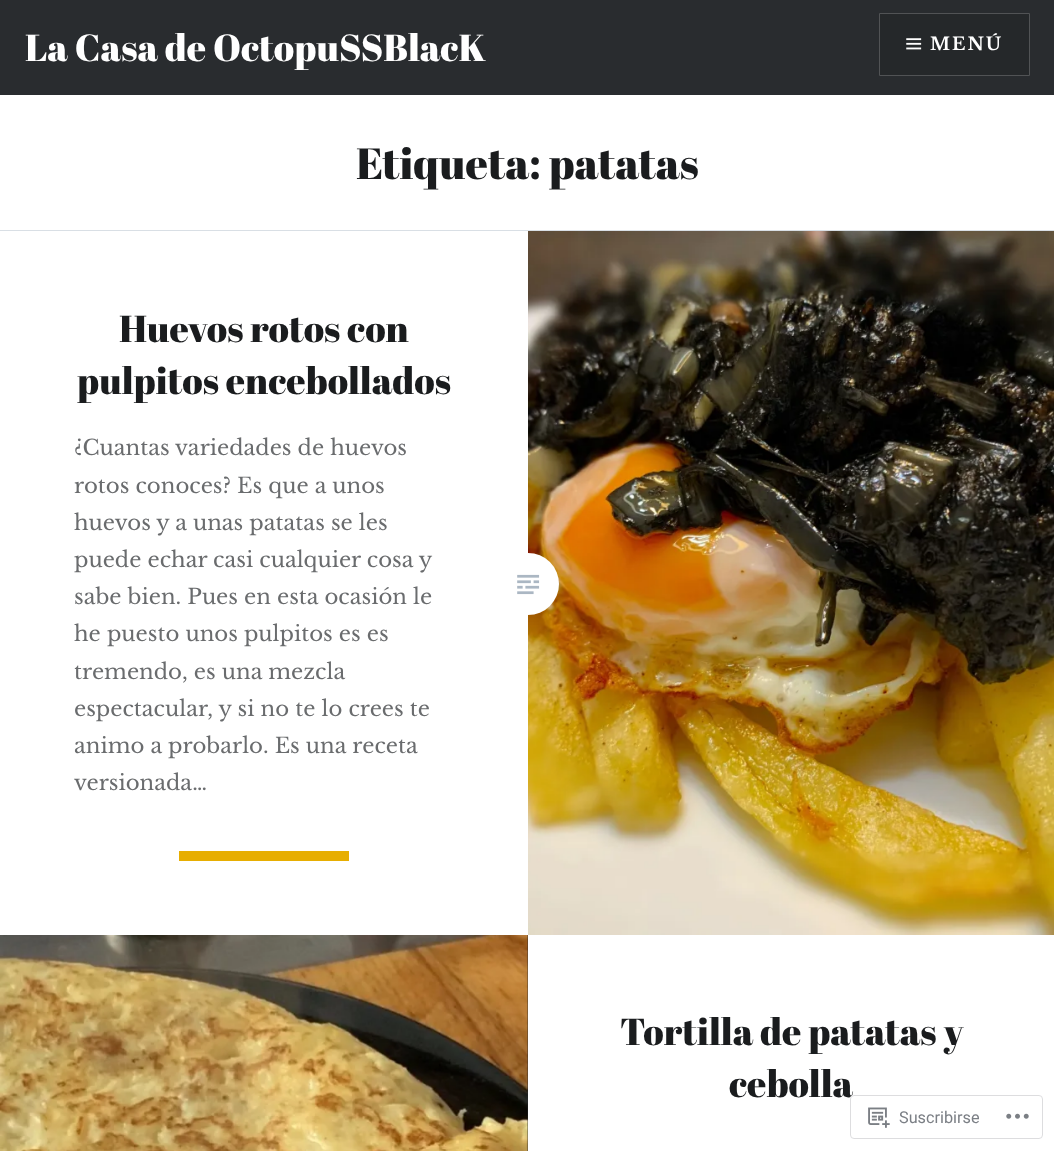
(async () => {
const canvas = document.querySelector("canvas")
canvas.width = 1054
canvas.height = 1151
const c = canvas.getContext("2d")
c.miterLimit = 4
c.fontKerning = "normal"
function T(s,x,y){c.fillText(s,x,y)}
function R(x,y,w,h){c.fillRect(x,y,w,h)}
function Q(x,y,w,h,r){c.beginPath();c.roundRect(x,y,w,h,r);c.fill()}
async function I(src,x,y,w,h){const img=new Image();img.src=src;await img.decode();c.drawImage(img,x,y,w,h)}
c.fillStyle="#fff"
R(0,0,1054,1151)
c.fillStyle="#292c2f"
R(0,0,1054,95)
c.font="37.5px Abril Fatface"
c.fillStyle="#fff"
T("La Casa de OctopuSSBlacK",25,61)
c.fillStyle="#25282a"
c.beginPath()
c.rect(879.5,13.5,150,62)
c.fill()
c.strokeStyle="#515355"
c.stroke()
await I("1.png",906,38,16,12)
c.letterSpacing="2px"
c.font="bold 17.5px Libre Baskerville"
c.fillStyle="#fff"
T("MENÚ",930,50)
c.fillStyle="#d9dfe5"
R(0,230,1054,1)
c.letterSpacing="0px"
c.font="43.75px Abril Fatface"
c.fillStyle="#1a1c1e"
T("Etiqueta: patatas",356,179)
c.font="37.5px Abril Fatface"
T("Huevos rotos con",119,342)
T("pulpitos encebollados",77,394)
c.font="21.25px Libre Baskerville"
c.fillStyle="#6a6c6e"
T("¿Cuantas variedades de huevos",74,455)
T("rotos conoces? Es que a unos",74,493)
T("huevos y a unas patatas se les",74,530)
T("puede echar casi cualquier cosa y",74,567)
T("sabe bien. Pues en esta ocasión le",74,604)
T("he puesto unos pulpitos es es",74,641)
T("tremendo, es una mezcla",74,679)
T("espectacular, y si no te lo crees te",74,716)
T("animo a probarlo. Es una receta",74,753)
T("versionada…",74,790)
c.fillStyle="#e7ae01"
R(179,851,170,10)
await I("3.png",528,231,526,704)
c.fillStyle="#fff"
Q(496,553,63,62,31)
await I("2.png",517,574,23,21)
c.fillStyle="#242629"
R(527,935,1,216)
await I("4.png",0,935,528,216)
c.font="37.5px Abril Fatface"
c.fillStyle="#1a1c1e"
T("Tortilla de patatas y",620,1045)
T("cebolla",729,1097)
c.fillStyle="#fffffffa"
Q(850,1095,193,44,4)
c.beginPath()
c.roundRect(850.5,1095.5,192,43,3.5)
c.strokeStyle="#dcdcdefa"
c.stroke()
await I("5.png",868,1107,22,21)
c.font="16.25px Roboto"
c.fillStyle="#7b7f85"
T("Suscribirse",899,1123)
await I("6.png",1006,1113,23,6)
})()
